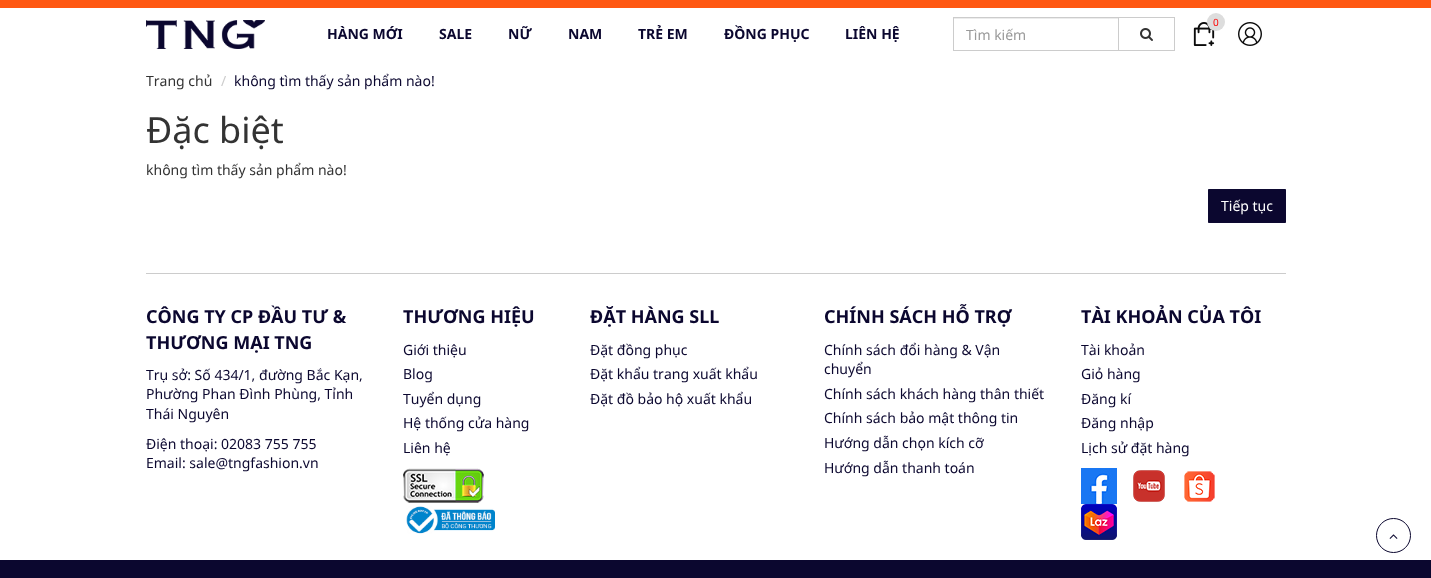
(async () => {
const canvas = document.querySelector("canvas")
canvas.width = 1431
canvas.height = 578
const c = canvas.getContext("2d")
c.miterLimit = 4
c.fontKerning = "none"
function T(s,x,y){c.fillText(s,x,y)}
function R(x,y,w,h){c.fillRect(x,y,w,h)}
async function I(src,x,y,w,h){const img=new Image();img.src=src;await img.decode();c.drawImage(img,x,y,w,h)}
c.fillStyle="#fff"
R(0,0,1431,578)
c.fillStyle="#ff5812"
R(0,0,1431,8)
await I("1.png",146,20,119,29)
c.font="bold 14px Noto Sans"
c.fillStyle="#0b072f"
T("HÀNG MỚI",327,39)
T("SALE",439,39)
T("NỮ",508,39)
T("NAM",568,39)
T("TRẺ EM",638,39)
T("ĐỒNG PHỤC",724,39)
T("LIÊN HỆ",845,39)
c.fillStyle="#ececec"
R(954,18,164,1)
c.strokeStyle="#ccc"
c.strokeRect(953.5,17.5,165,33)
c.font="14px Noto Sans"
c.fillStyle="#999"
T("Tìm kiếm",966,40)
c.fillStyle="#ccc"
R(1119,17,56,1)
R(1174,17,1,34)
R(1119,50,56,1)
await I("2.png",1140,28,13,13)
await I("3.png",1193,22,22,24)
c.fillStyle="#ddd"
c.beginPath()
c.arc(1216,22,9,0,7)
c.fill()
c.font="10px Noto Sans"
c.fillStyle="#f00"
T("0",1213,26)
await I("4.png",1238,22,24,24)
c.font="14px Noto Sans"
c.fillStyle="#333"
T("Trang chủ",146,86)
c.fillStyle="#ccc"
T("/",221,86)
c.fillStyle="#0b072f"
T("không tìm thấy sản phẩm nào!",234,86)
c.font="36px Noto Sans"
c.fillStyle="#333"
T("Đặc biệt",146,143)
c.font="14px Noto Sans"
T("không tìm thấy sản phẩm nào!",146,175)
c.fillStyle="#0b072f"
c.beginPath()
c.rect(1208.5,189.5,77,33)
c.fill()
c.strokeStyle="#0d0931"
c.stroke()
c.fillStyle="#fff"
T("Tiếp tục",1221,211)
c.fillStyle="#ccc"
R(146,273,1140,1)
c.font="bold 18px Noto Sans"
c.fillStyle="#0b072f"
T("CÔNG TY CP ĐẦU TƯ &",146,323)
T("THƯƠNG MẠI TNG",146,349)
c.font="14px Noto Sans"
T("Trụ sở: Số 434/1, đường Bắc Kạn,",146,380)
T("Phường Phan Đình Phùng, Tỉnh",146,399)
T("Thái Nguyên",146,419)
T("Điện thoại: 02083 755 755",146,449)
T("Email: sale@tngfashion.vn",146,468)
c.font="bold 18px Noto Sans"
T("THƯƠNG HIỆU",403,323)
c.font="14px Noto Sans"
T("Giới thiệu",403,355)
T("Blog",403,379)
T("Tuyển dụng",403,404)
T("Hệ thống cửa hàng",403,428)
T("Liên hệ",403,453)
await I("5.png",403,468,81,35)
await I("6.png",406,506,89,28)
c.font="bold 18px Noto Sans"
T("ĐẶT HÀNG SLL",590,323)
c.font="14px Noto Sans"
T("Đặt đồng phục",590,355)
T("Đặt khẩu trang xuất khẩu",590,379)
T("Đặt đồ bảo hộ xuất khẩu",590,404)
c.font="bold 18px Noto Sans"
T("CHÍNH SÁCH HỖ TRỢ",824,323)
c.font="14px Noto Sans"
T("Chính sách đổi hàng & Vận",824,355)
T("chuyển",824,374)
T("Chính sách khách hàng thân thiết",824,399)
T("Chính sách bảo mật thông tin",824,423)
T("Hướng dẫn chọn kích cỡ",824,448)
T("Hướng dẫn thanh toán",824,473)
c.font="bold 18px Noto Sans"
T("TÀI KHOẢN CỦA TÔI",1081,323)
c.font="14px Noto Sans"
T("Tài khoản",1081,355)
T("Giỏ hàng",1081,379)
T("Đăng kí",1081,404)
T("Đăng nhập",1081,428)
T("Lịch sử đặt hàng",1081,453)
await I("7.png",1081,468,36,36)
await I("8.png",1133,470,32,32)
await I("9.png",1184,471,31,31)
await I("10.png",1081,504,36,36)
c.beginPath()
c.arc(1393.5,535.5,17,0,7)
c.strokeStyle="#0b072f"
c.stroke()
await I("11.png",1389,534,9,5)
R(0,560,1431,18)
})()
